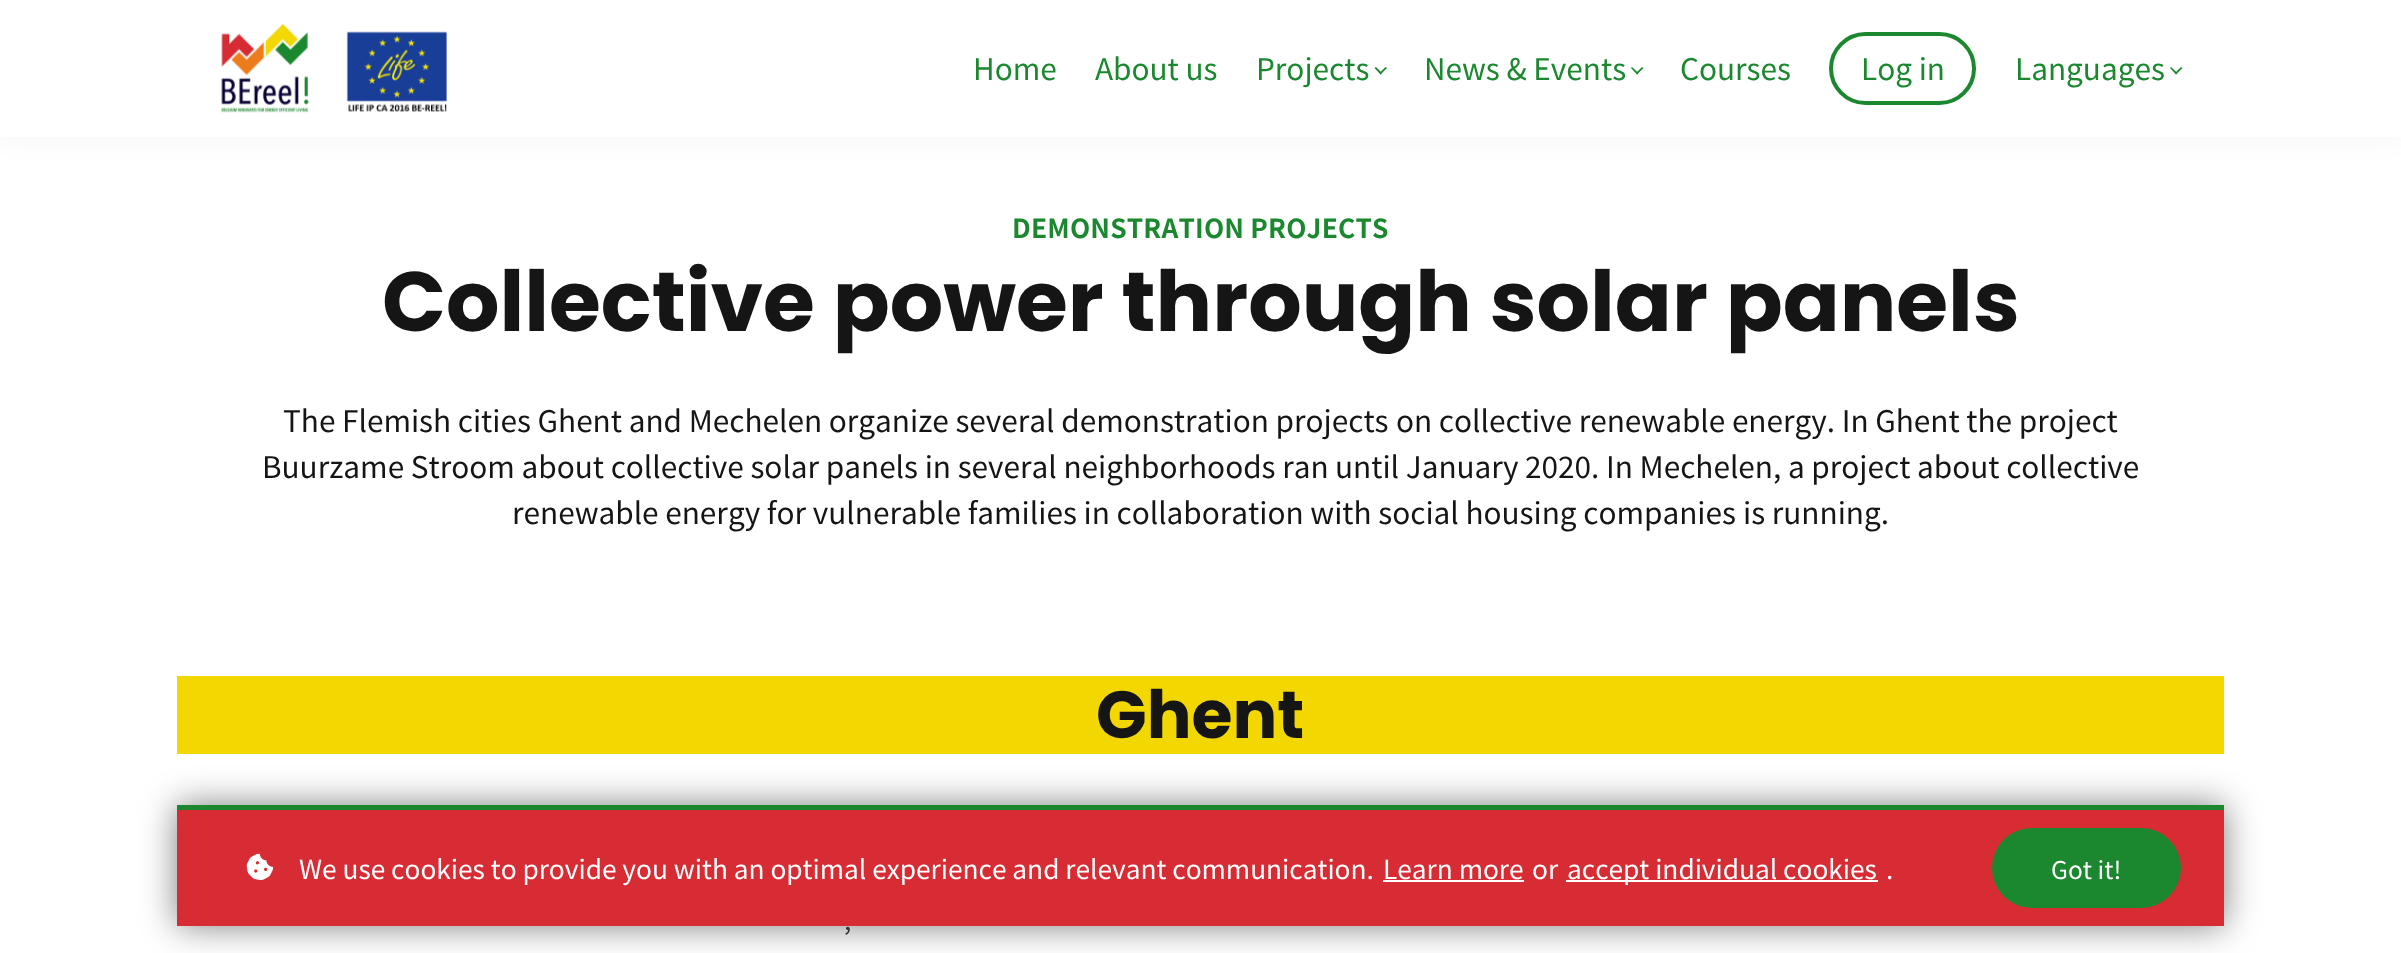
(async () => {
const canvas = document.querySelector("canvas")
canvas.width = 2401
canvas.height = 953
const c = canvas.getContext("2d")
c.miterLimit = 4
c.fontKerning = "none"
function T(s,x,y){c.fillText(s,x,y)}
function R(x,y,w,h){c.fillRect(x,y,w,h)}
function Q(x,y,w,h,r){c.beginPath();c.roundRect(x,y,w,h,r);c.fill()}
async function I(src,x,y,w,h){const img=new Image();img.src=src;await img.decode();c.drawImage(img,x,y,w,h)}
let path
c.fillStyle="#fff"
R(0,0,2401,953)
c.fillStyle="#0000000d"
c.filter="blur(13px)"
c.beginPath()
c.rect(0,0,2401,137)
c.fill()
c.filter="none"
c.fillStyle="#fff"
R(0,0,2401,137)
await I("1.png",221,24,227,89)
c.font="29.75px Noto Sans JP"
c.fillStyle="#1b882f"
T("Home",973,80)
T("About us",1095,80)
T("Projects",1256,80)
path = new Path2D("M1387 68l-6.5 6.5l-1-1.5l6-6z")
c.fill(path)
path = new Path2D("M1382 73l-1.5 1.5l-6-6.5l1.5-1z")
c.fill(path)
T("News & Events",1424,80)
path = new Path2D("M1643.5 68l-6.5 6.5l-1-1.5l6-6z")
c.fill(path)
path = new Path2D("M1638.5 73l-1.5 1.5l-6-6.5l1-1z")
c.fill(path)
T("Courses",1680,80)
c.beginPath()
c.roundRect(1831,34,143,69,34.5)
c.strokeStyle="#1b882f"
c.lineWidth=4
c.stroke()
T("Log in",1861,80)
T("Languages",2015,80)
path = new Path2D("M2182.5 68l-6.5 6.5l-1-1.5l6-6z")
c.fill(path)
path = new Path2D("M2177.5 73l-1.5 1.5l-6-6.5l1-1z")
c.fill(path)
c.letterSpacing="0.2px"
c.font="bold 26.25px Noto Sans JP"
T("DEMONSTRATION PROJECTS",1012,238)
c.letterSpacing="0px"
c.font="bold 84px Poppins"
c.fillStyle="#151515"
T("Collective power through solar panels",382,331)
c.font="29.75px Noto Sans JP"
T("The Flemish cities Ghent and Mechelen organize several demonstration projects",283,432)
T("on collective renewable energy. In Ghent the project",1396,432)
T("Buurzame Stroom about collective solar panels in several neighborhoods ran",262,478)
T("until January 2020. In Mechelen, a project about collective",1335,478)
T("renewable energy for vulnerable families in collaboration with social housing companies",512,524)
T("is running.",1743,524)
c.fillStyle="#f3d700"
R(177,676,2047,78)
c.font="bold 66.5px Poppins"
c.fillStyle="#151515"
T("Ghent",1096,738)
c.font="26.25px Noto Sans JP"
c.fillStyle="#444"
T(",",844,930)
c.fillStyle="#00000080"
c.filter="blur(17.5px)"
c.beginPath()
c.rect(177,805,2047,121)
c.fill()
c.filter="none"
c.fillStyle="#d72c34"
R(177,810,2047,116)
c.fillStyle="#1b882f"
R(177,805,2047,5)
await I("2.png",246,853,27,27)
c.fillStyle="#fff"
T("We use cookies to provide you with an optimal experience and relevant communication.",299,879)
T("Learn more",1383,879)
R(1383,880,141,2)
T("or",1532,879)
R(1566,880,312,2)
T("accept individual cookies",1567,879)
T(".",1886,879)
c.fillStyle="#1b882f"
Q(1992,828,189,80,40)
c.font="24.5px Noto Sans JP"
c.fillStyle="#fff"
T("Got it!",2051,879)
})()
